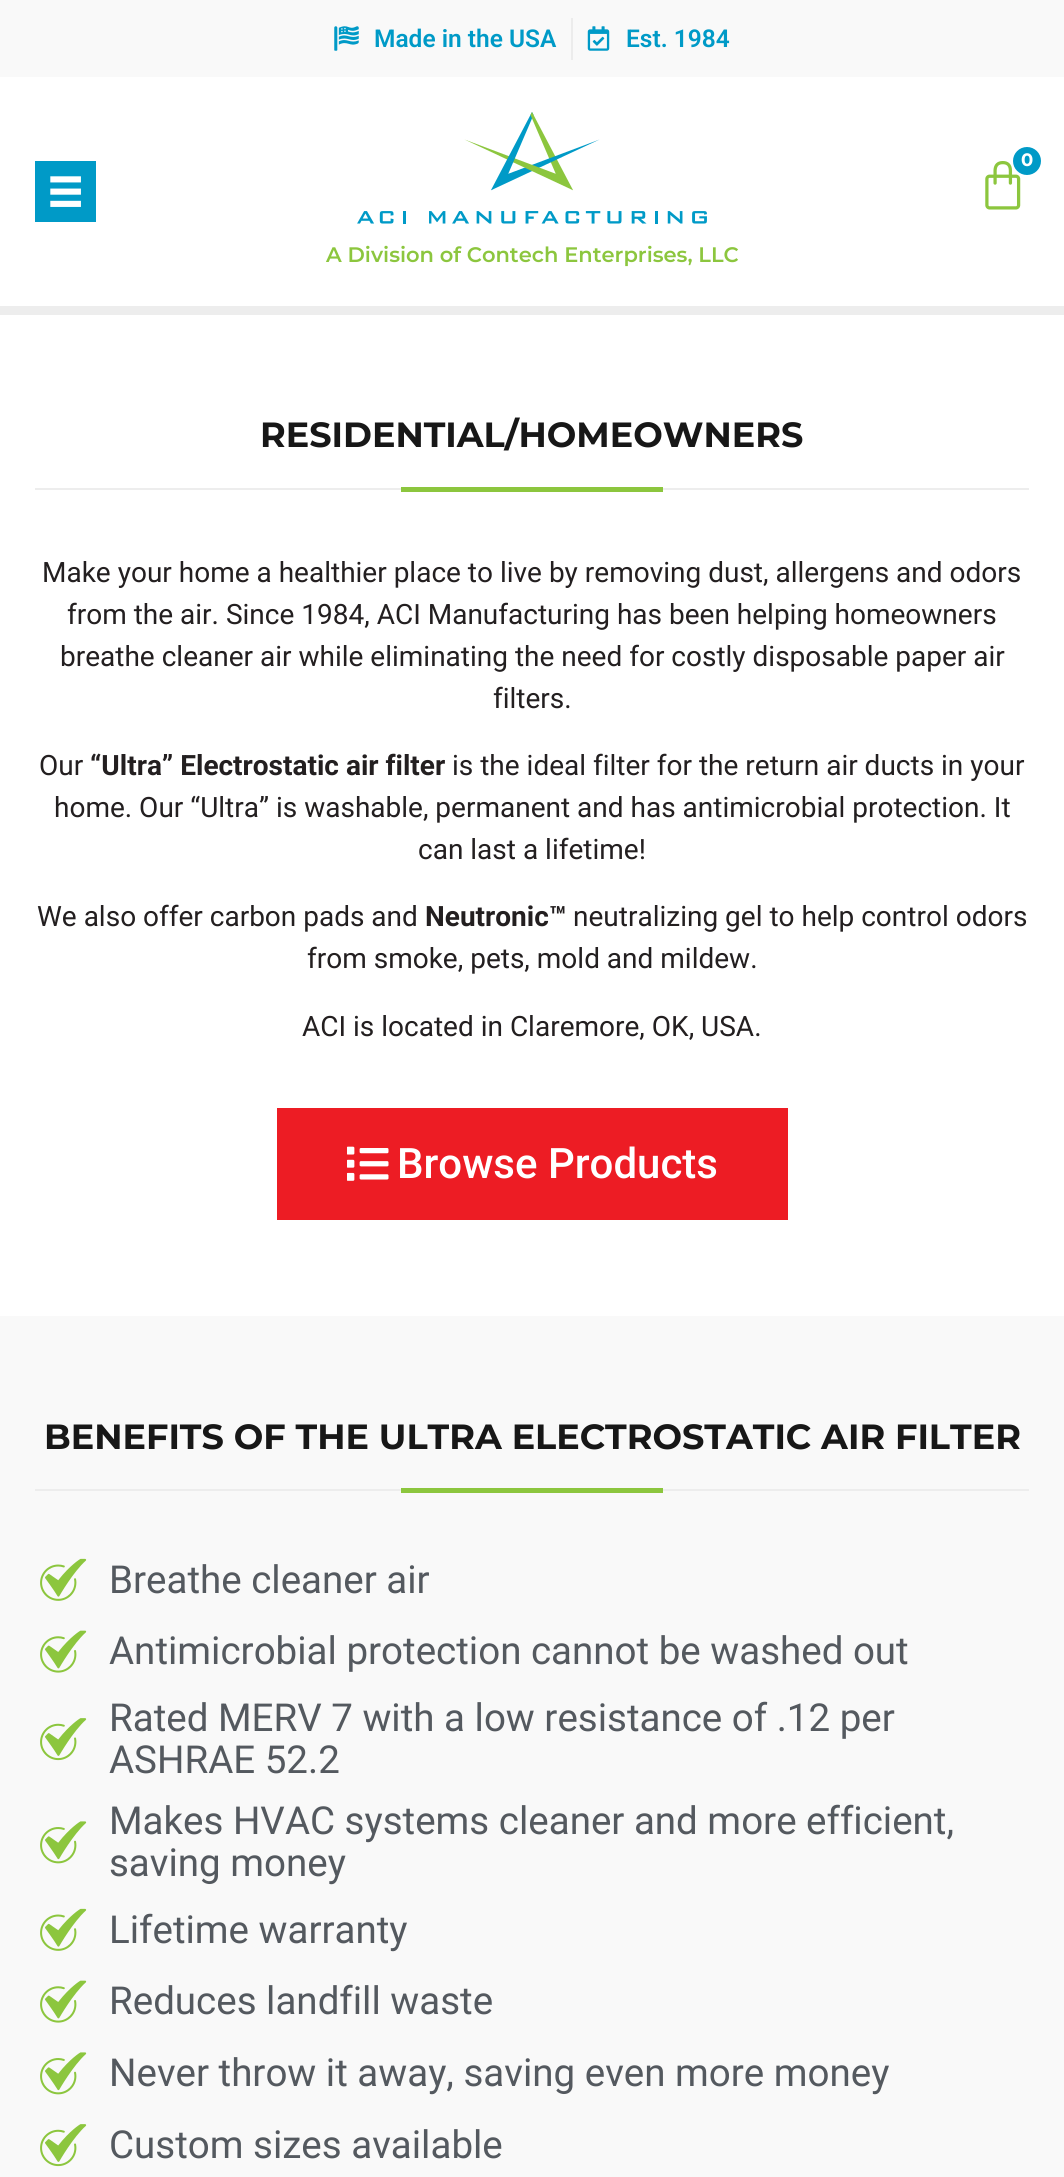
#include <cairo.h>
#include <math.h>
#include <stddef.h>


static void picture(cairo_t *cr, const char *path, double x, double y, double w, double h) {
    cairo_surface_t *image = cairo_image_surface_create_from_png(path);
    cairo_save(cr);
    cairo_set_source_surface(cr, image, x, y);
    cairo_rectangle(cr, x, y, w, h);
    cairo_fill(cr);
    cairo_restore(cr);
    cairo_surface_destroy(image);
}

int main(void) {
    cairo_surface_t *surface = cairo_image_surface_create(CAIRO_FORMAT_RGB24, 1064, 2177);
    cairo_t *cr = cairo_create(surface);
    cairo_font_options_t *options = cairo_font_options_create();
    cairo_font_options_set_hint_metrics(options, CAIRO_HINT_METRICS_OFF);
    cairo_font_options_set_hint_style(options, CAIRO_HINT_STYLE_NONE);
    cairo_set_font_options(cr, options);
    cairo_set_miter_limit(cr, 4);
    cairo_set_source_rgb(cr, 1, 1, 1);
    cairo_paint(cr);
    cairo_set_source_rgb(cr, 0.976, 0.976, 0.976);
    cairo_rectangle(cr, 0, 0, 1064, 77);
    cairo_fill(cr);
    picture(cr, "img1.png", 334, 26, 25, 25);
    cairo_select_font_face(cr, "Roboto SemiBold", CAIRO_FONT_SLANT_NORMAL, CAIRO_FONT_WEIGHT_NORMAL);
    cairo_set_font_size(cr, 24.5);
    cairo_set_source_rgb(cr, 0, 0.604, 0.78);
    cairo_move_to(cr, 374, 47);
    cairo_show_text(cr, "Made in the USA");
    cairo_set_source_rgb(cr, 0.925, 0.925, 0.925);
    cairo_rectangle(cr, 571, 18, 2, 42);
    cairo_fill(cr);
    picture(cr, "img2.png", 587, 26, 23, 25);
    cairo_set_source_rgb(cr, 0, 0.604, 0.78);
    cairo_move_to(cr, 626, 47);
    cairo_show_text(cr, "Est. 1984");
    cairo_set_source_rgb(cr, 0.929, 0.929, 0.929);
    cairo_rectangle(cr, 0, 306, 1064, 9);
    cairo_fill(cr);
    cairo_set_source_rgb(cr, 0, 0.604, 0.78);
    cairo_rectangle(cr, 35, 161, 61, 61);
    cairo_fill(cr);
    picture(cr, "img3.png", 50, 176, 31, 31);
    picture(cr, "img4.png", 985, 161, 36, 49);
    cairo_arc(cr, 1027, 161, 14, 0, 2 * M_PI);
    cairo_fill(cr);
    cairo_select_font_face(cr, "Montserrat", CAIRO_FONT_SLANT_NORMAL, CAIRO_FONT_WEIGHT_BOLD);
    cairo_set_font_size(cr, 18);
    cairo_set_source_rgb(cr, 1, 1, 1);
    cairo_move_to(cr, 1021, 166);
    cairo_show_text(cr, "0");
    picture(cr, "img5.png", 357, 112, 350, 112);
    cairo_select_font_face(cr, "Montserrat SemiBold", CAIRO_FONT_SLANT_NORMAL, CAIRO_FONT_WEIGHT_NORMAL);
    cairo_set_font_size(cr, 21);
    cairo_set_source_rgb(cr, 0.549, 0.776, 0.243);
    cairo_move_to(cr, 326, 262);
    cairo_show_text(cr, "A Division of Contech Enterprises, LLC");
    cairo_select_font_face(cr, "Montserrat", CAIRO_FONT_SLANT_NORMAL, CAIRO_FONT_WEIGHT_BOLD);
    cairo_set_font_size(cr, 35);
    cairo_set_source_rgb(cr, 0.09, 0.09, 0.09);
    cairo_move_to(cr, 260, 447);
    cairo_show_text(cr, "RESIDENTIAL/HOMEOWNERS");
    cairo_set_source_rgb(cr, 0.929, 0.929, 0.929);
    cairo_rectangle(cr, 35, 488, 366, 2);
    cairo_fill(cr);
    cairo_set_source_rgb(cr, 0.549, 0.776, 0.243);
    cairo_rectangle(cr, 401, 487, 262, 5);
    cairo_fill(cr);
    cairo_set_source_rgb(cr, 0.929, 0.929, 0.929);
    cairo_rectangle(cr, 663, 488, 366, 2);
    cairo_fill(cr);
    cairo_select_font_face(cr, "Roboto", CAIRO_FONT_SLANT_NORMAL, CAIRO_FONT_WEIGHT_NORMAL);
    cairo_set_font_size(cr, 28);
    cairo_set_source_rgb(cr, 0.137, 0.122, 0.125);
    cairo_move_to(cr, 42, 582);
    cairo_show_text(cr, "Make your home a healthier place to live by removing dust, allergens and odors");
    cairo_move_to(cr, 67, 624);
    cairo_show_text(cr, "from the air. Since 1984, ACI Manufacturing has been helping homeowners");
    cairo_move_to(cr, 60, 666);
    cairo_show_text(cr, "breathe cleaner air while eliminating the need for costly disposable paper air");
    cairo_move_to(cr, 493, 708);
    cairo_show_text(cr, "filters.");
    cairo_move_to(cr, 39, 775);
    cairo_show_text(cr, "Our");
    cairo_select_font_face(cr, "Roboto", CAIRO_FONT_SLANT_NORMAL, CAIRO_FONT_WEIGHT_BOLD);
    cairo_move_to(cr, 90, 775);
    cairo_show_text(cr, "“Ultra” Electrostatic air filter");
    cairo_select_font_face(cr, "Roboto", CAIRO_FONT_SLANT_NORMAL, CAIRO_FONT_WEIGHT_NORMAL);
    cairo_move_to(cr, 452, 775);
    cairo_show_text(cr, "is the ideal filter for the return air ducts in your");
    cairo_move_to(cr, 54, 817);
    cairo_show_text(cr, "home. Our “Ultra” is washable, permanent and has antimicrobial protection. It");
    cairo_move_to(cr, 418, 859);
    cairo_show_text(cr, "can last a lifetime!");
    cairo_move_to(cr, 37, 926);
    cairo_show_text(cr, "We also offer carbon pads and");
    cairo_select_font_face(cr, "Roboto", CAIRO_FONT_SLANT_NORMAL, CAIRO_FONT_WEIGHT_BOLD);
    cairo_move_to(cr, 425, 926);
    cairo_show_text(cr, "Neutronic™");
    cairo_select_font_face(cr, "Roboto", CAIRO_FONT_SLANT_NORMAL, CAIRO_FONT_WEIGHT_NORMAL);
    cairo_move_to(cr, 573, 926);
    cairo_show_text(cr, "neutralizing gel to help control odors");
    cairo_move_to(cr, 307, 968);
    cairo_show_text(cr, "from smoke, pets, mold and mildew.");
    cairo_move_to(cr, 302, 1036);
    cairo_show_text(cr, "ACI is located in Claremore, OK, USA.");
    cairo_set_source_rgb(cr, 0.929, 0.11, 0.141);
    cairo_rectangle(cr, 277, 1108, 511, 112);
    cairo_fill(cr);
    picture(cr, "img6.png", 347, 1146, 42, 35);
    cairo_select_font_face(cr, "Roboto Medium", CAIRO_FONT_SLANT_NORMAL, CAIRO_FONT_WEIGHT_NORMAL);
    cairo_set_font_size(cr, 42);
    cairo_set_source_rgb(cr, 1, 1, 1);
    cairo_move_to(cr, 397, 1178);
    cairo_show_text(cr, "Browse Products");
    cairo_set_source_rgb(cr, 0.976, 0.976, 0.976);
    cairo_rectangle(cr, 0, 1316, 1064, 861);
    cairo_fill(cr);
    cairo_select_font_face(cr, "Montserrat", CAIRO_FONT_SLANT_NORMAL, CAIRO_FONT_WEIGHT_BOLD);
    cairo_set_font_size(cr, 35);
    cairo_set_source_rgb(cr, 0.09, 0.09, 0.09);
    cairo_move_to(cr, 44, 1449);
    cairo_show_text(cr, "BENEFITS OF THE ULTRA ELECTROSTATIC AIR FILTER");
    cairo_set_source_rgb(cr, 0.929, 0.929, 0.929);
    cairo_rectangle(cr, 35, 1489, 366, 2);
    cairo_fill(cr);
    cairo_set_source_rgb(cr, 0.549, 0.776, 0.243);
    cairo_rectangle(cr, 401, 1488, 262, 5);
    cairo_fill(cr);
    cairo_set_source_rgb(cr, 0.929, 0.929, 0.929);
    cairo_rectangle(cr, 663, 1489, 366, 2);
    cairo_fill(cr);
    picture(cr, "img7.png", 40, 1558, 47, 43);
    cairo_select_font_face(cr, "Roboto", CAIRO_FONT_SLANT_NORMAL, CAIRO_FONT_WEIGHT_NORMAL);
    cairo_set_font_size(cr, 38.5);
    cairo_set_source_rgb(cr, 0.329, 0.349, 0.373);
    cairo_move_to(cr, 109, 1593);
    cairo_show_text(cr, "Breathe cleaner air");
    picture(cr, "img8.png", 40, 1630, 47, 43);
    cairo_move_to(cr, 109, 1664);
    cairo_show_text(cr, "Antimicrobial protection cannot be washed out");
    picture(cr, "img9.png", 40, 1718, 47, 43);
    cairo_move_to(cr, 109, 1731);
    cairo_show_text(cr, "Rated MERV 7 with a low resistance of .12 per");
    cairo_move_to(cr, 109, 1773);
    cairo_show_text(cr, "ASHRAE 52.2");
    picture(cr, "img10.png", 40, 1821, 47, 43);
    cairo_move_to(cr, 109, 1834);
    cairo_show_text(cr, "Makes HVAC systems cleaner and more efficient,");
    cairo_move_to(cr, 109, 1876);
    cairo_show_text(cr, "saving money");
    picture(cr, "img7.png", 40, 1908, 47, 43);
    cairo_move_to(cr, 109, 1943);
    cairo_show_text(cr, "Lifetime warranty");
    picture(cr, "img8.png", 40, 1980, 47, 43);
    cairo_move_to(cr, 109, 2014);
    cairo_show_text(cr, "Reduces landfill waste");
    picture(cr, "img10.png", 40, 2052, 47, 43);
    cairo_move_to(cr, 109, 2086);
    cairo_show_text(cr, "Never throw it away, saving even more money");
    picture(cr, "img9.png", 40, 2124, 47, 43);
    cairo_move_to(cr, 109, 2158);
    cairo_show_text(cr, "Custom sizes available");
    cairo_surface_write_to_png(surface, "page.png");
    cairo_font_options_destroy(options);
    cairo_destroy(cr);
    cairo_surface_destroy(surface);
    return 0;
}
